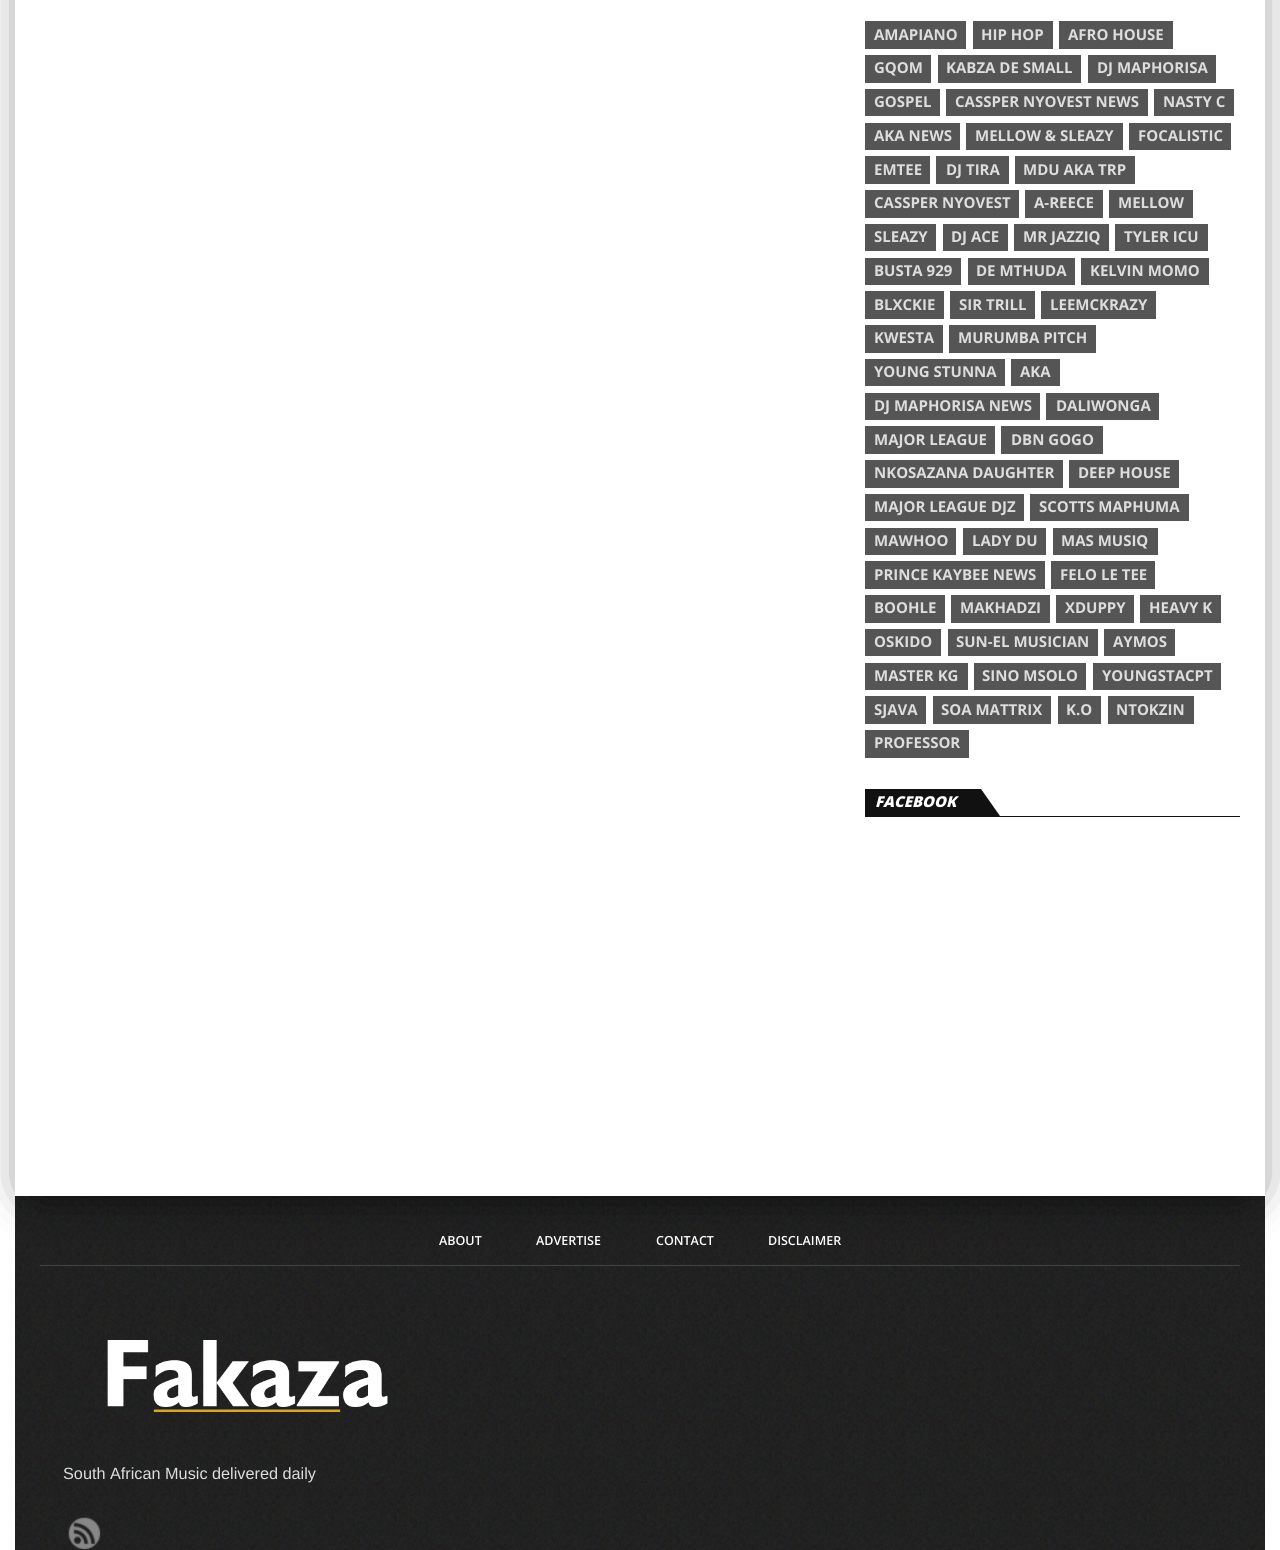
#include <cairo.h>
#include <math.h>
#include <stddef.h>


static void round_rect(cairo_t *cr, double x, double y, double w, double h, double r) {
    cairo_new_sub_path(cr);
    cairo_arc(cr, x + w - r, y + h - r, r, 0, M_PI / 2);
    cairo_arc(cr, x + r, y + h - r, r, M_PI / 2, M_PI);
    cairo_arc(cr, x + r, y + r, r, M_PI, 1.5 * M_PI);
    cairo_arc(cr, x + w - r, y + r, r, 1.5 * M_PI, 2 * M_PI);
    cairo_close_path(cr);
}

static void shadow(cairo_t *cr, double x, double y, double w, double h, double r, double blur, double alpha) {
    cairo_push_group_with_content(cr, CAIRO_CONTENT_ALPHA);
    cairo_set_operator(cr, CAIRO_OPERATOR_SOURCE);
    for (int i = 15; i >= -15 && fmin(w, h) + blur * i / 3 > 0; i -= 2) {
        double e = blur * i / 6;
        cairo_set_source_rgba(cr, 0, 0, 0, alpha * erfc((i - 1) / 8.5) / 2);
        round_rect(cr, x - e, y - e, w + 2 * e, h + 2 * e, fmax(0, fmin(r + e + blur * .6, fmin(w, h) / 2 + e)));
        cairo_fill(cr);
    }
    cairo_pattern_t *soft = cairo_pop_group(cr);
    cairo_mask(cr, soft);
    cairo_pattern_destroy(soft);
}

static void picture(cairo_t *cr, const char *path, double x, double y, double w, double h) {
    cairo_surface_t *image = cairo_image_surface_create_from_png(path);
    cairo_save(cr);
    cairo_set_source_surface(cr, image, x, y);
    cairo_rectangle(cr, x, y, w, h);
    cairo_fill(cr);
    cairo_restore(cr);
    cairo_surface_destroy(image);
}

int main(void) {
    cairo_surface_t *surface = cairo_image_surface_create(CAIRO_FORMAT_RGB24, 1280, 1550);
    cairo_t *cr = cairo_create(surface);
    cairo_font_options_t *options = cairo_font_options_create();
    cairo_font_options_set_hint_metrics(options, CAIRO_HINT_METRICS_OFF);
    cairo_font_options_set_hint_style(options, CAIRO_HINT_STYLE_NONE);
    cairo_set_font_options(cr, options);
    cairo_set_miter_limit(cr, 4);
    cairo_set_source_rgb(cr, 1, 1, 1);
    cairo_paint(cr);
    cairo_set_source_rgb(cr, 0.133, 0.133, 0.133);
    cairo_rectangle(cr, 15, 1196, 1250, 2);
    cairo_fill(cr);
    picture(cr, "img1.png", 15, 1197, 1250, 353);
    cairo_save(cr);
    cairo_set_fill_rule(cr, CAIRO_FILL_RULE_EVEN_ODD);
    cairo_new_path(cr);
    cairo_move_to(cr, 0, 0);
    cairo_line_to(cr, 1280, 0);
    cairo_line_to(cr, 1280, 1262);
    cairo_line_to(cr, 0, 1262);
    cairo_close_path(cr);
    cairo_move_to(cr, 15, -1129);
    cairo_line_to(cr, 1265, -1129);
    cairo_line_to(cr, 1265, 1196);
    cairo_line_to(cr, 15, 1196);
    cairo_close_path(cr);
    cairo_clip(cr);
    cairo_set_source_rgb(cr, 0, 0, 0);
    shadow(cr, 38, -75, 1205, 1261, 0, 25, 1);
    cairo_restore(cr);
    cairo_set_source_rgb(cr, 0.333, 0.333, 0.333);
    cairo_rectangle(cr, 865, 21, 101, 28);
    cairo_fill(cr);
    cairo_select_font_face(cr, "Open Sans", CAIRO_FONT_SLANT_NORMAL, CAIRO_FONT_WEIGHT_BOLD);
    cairo_set_font_size(cr, 15);
    cairo_set_source_rgb(cr, 0.867, 0.867, 0.867);
    cairo_move_to(cr, 874, 40);
    cairo_show_text(cr, "AMAPIANO");
    cairo_set_source_rgb(cr, 0.333, 0.333, 0.333);
    cairo_rectangle(cr, 973, 21, 80, 28);
    cairo_fill(cr);
    cairo_set_source_rgb(cr, 0.867, 0.867, 0.867);
    cairo_move_to(cr, 981, 40);
    cairo_show_text(cr, "HIP HOP");
    cairo_set_source_rgb(cr, 0.333, 0.333, 0.333);
    cairo_rectangle(cr, 1059, 21, 114, 28);
    cairo_fill(cr);
    cairo_set_source_rgb(cr, 0.867, 0.867, 0.867);
    cairo_move_to(cr, 1068, 40);
    cairo_show_text(cr, "AFRO HOUSE");
    cairo_set_source_rgb(cr, 0.333, 0.333, 0.333);
    cairo_rectangle(cr, 865, 55, 66, 28);
    cairo_fill(cr);
    cairo_set_source_rgb(cr, 0.867, 0.867, 0.867);
    cairo_move_to(cr, 874, 73);
    cairo_show_text(cr, "GQOM");
    cairo_set_source_rgb(cr, 0.333, 0.333, 0.333);
    cairo_rectangle(cr, 938, 55, 143, 28);
    cairo_fill(cr);
    cairo_set_source_rgb(cr, 0.867, 0.867, 0.867);
    cairo_move_to(cr, 946, 73);
    cairo_show_text(cr, "KABZA DE SMALL");
    cairo_set_source_rgb(cr, 0.333, 0.333, 0.333);
    cairo_rectangle(cr, 1088, 55, 128, 28);
    cairo_fill(cr);
    cairo_set_source_rgb(cr, 0.867, 0.867, 0.867);
    cairo_move_to(cr, 1097, 73);
    cairo_show_text(cr, "DJ MAPHORISA");
    cairo_set_source_rgb(cr, 0.333, 0.333, 0.333);
    cairo_rectangle(cr, 865, 89, 75, 27);
    cairo_fill(cr);
    cairo_set_source_rgb(cr, 0.867, 0.867, 0.867);
    cairo_move_to(cr, 874, 107);
    cairo_show_text(cr, "GOSPEL");
    cairo_set_source_rgb(cr, 0.333, 0.333, 0.333);
    cairo_rectangle(cr, 946, 89, 202, 27);
    cairo_fill(cr);
    cairo_set_source_rgb(cr, 0.867, 0.867, 0.867);
    cairo_move_to(cr, 955, 107);
    cairo_show_text(cr, "CASSPER NYOVEST NEWS");
    cairo_set_source_rgb(cr, 0.333, 0.333, 0.333);
    cairo_rectangle(cr, 1154, 89, 80, 27);
    cairo_fill(cr);
    cairo_set_source_rgb(cr, 0.867, 0.867, 0.867);
    cairo_move_to(cr, 1163, 107);
    cairo_show_text(cr, "NASTY C");
    cairo_set_source_rgb(cr, 0.333, 0.333, 0.333);
    cairo_rectangle(cr, 865, 123, 95, 27);
    cairo_fill(cr);
    cairo_set_source_rgb(cr, 0.867, 0.867, 0.867);
    cairo_move_to(cr, 874, 141);
    cairo_show_text(cr, "AKA NEWS");
    cairo_set_source_rgb(cr, 0.333, 0.333, 0.333);
    cairo_rectangle(cr, 966, 123, 157, 27);
    cairo_fill(cr);
    cairo_set_source_rgb(cr, 0.867, 0.867, 0.867);
    cairo_move_to(cr, 975, 141);
    cairo_show_text(cr, "MELLOW & SLEAZY");
    cairo_set_source_rgb(cr, 0.333, 0.333, 0.333);
    cairo_rectangle(cr, 1129, 123, 102, 27);
    cairo_fill(cr);
    cairo_set_source_rgb(cr, 0.867, 0.867, 0.867);
    cairo_move_to(cr, 1138, 141);
    cairo_show_text(cr, "FOCALISTIC");
    cairo_set_source_rgb(cr, 0.333, 0.333, 0.333);
    cairo_rectangle(cr, 865, 156, 65, 28);
    cairo_fill(cr);
    cairo_set_source_rgb(cr, 0.867, 0.867, 0.867);
    cairo_move_to(cr, 874, 175);
    cairo_show_text(cr, "EMTEE");
    cairo_set_source_rgb(cr, 0.333, 0.333, 0.333);
    cairo_rectangle(cr, 936, 156, 73, 28);
    cairo_fill(cr);
    cairo_set_source_rgb(cr, 0.867, 0.867, 0.867);
    cairo_move_to(cr, 946, 175);
    cairo_show_text(cr, "DJ TIRA");
    cairo_set_source_rgb(cr, 0.333, 0.333, 0.333);
    cairo_rectangle(cr, 1015, 156, 120, 28);
    cairo_fill(cr);
    cairo_set_source_rgb(cr, 0.867, 0.867, 0.867);
    cairo_move_to(cr, 1023, 175);
    cairo_show_text(cr, "MDU AKA TRP");
    cairo_set_source_rgb(cr, 0.333, 0.333, 0.333);
    cairo_rectangle(cr, 865, 190, 154, 28);
    cairo_fill(cr);
    cairo_set_source_rgb(cr, 0.867, 0.867, 0.867);
    cairo_move_to(cr, 874, 208);
    cairo_show_text(cr, "CASSPER NYOVEST");
    cairo_set_source_rgb(cr, 0.333, 0.333, 0.333);
    cairo_rectangle(cr, 1025, 190, 78, 28);
    cairo_fill(cr);
    cairo_set_source_rgb(cr, 0.867, 0.867, 0.867);
    cairo_move_to(cr, 1034, 208);
    cairo_show_text(cr, "A-REECE");
    cairo_set_source_rgb(cr, 0.333, 0.333, 0.333);
    cairo_rectangle(cr, 1109, 190, 84, 28);
    cairo_fill(cr);
    cairo_set_source_rgb(cr, 0.867, 0.867, 0.867);
    cairo_move_to(cr, 1118, 208);
    cairo_show_text(cr, "MELLOW");
    cairo_set_source_rgb(cr, 0.333, 0.333, 0.333);
    cairo_rectangle(cr, 865, 224, 71, 27);
    cairo_fill(cr);
    cairo_set_source_rgb(cr, 0.867, 0.867, 0.867);
    cairo_move_to(cr, 874, 242);
    cairo_show_text(cr, "SLEAZY");
    cairo_set_source_rgb(cr, 0.333, 0.333, 0.333);
    cairo_rectangle(cr, 943, 224, 65, 27);
    cairo_fill(cr);
    cairo_set_source_rgb(cr, 0.867, 0.867, 0.867);
    cairo_move_to(cr, 951, 242);
    cairo_show_text(cr, "DJ ACE");
    cairo_set_source_rgb(cr, 0.333, 0.333, 0.333);
    cairo_rectangle(cr, 1014, 224, 95, 27);
    cairo_fill(cr);
    cairo_set_source_rgb(cr, 0.867, 0.867, 0.867);
    cairo_move_to(cr, 1023, 242);
    cairo_show_text(cr, "MR JAZZIQ");
    cairo_set_source_rgb(cr, 0.333, 0.333, 0.333);
    cairo_rectangle(cr, 1115, 224, 93, 27);
    cairo_fill(cr);
    cairo_set_source_rgb(cr, 0.867, 0.867, 0.867);
    cairo_move_to(cr, 1124, 242);
    cairo_show_text(cr, "TYLER ICU");
    cairo_set_source_rgb(cr, 0.333, 0.333, 0.333);
    cairo_rectangle(cr, 865, 258, 96, 27);
    cairo_fill(cr);
    cairo_set_source_rgb(cr, 0.867, 0.867, 0.867);
    cairo_move_to(cr, 874, 276);
    cairo_show_text(cr, "BUSTA 929");
    cairo_set_source_rgb(cr, 0.333, 0.333, 0.333);
    cairo_rectangle(cr, 968, 258, 107, 27);
    cairo_fill(cr);
    cairo_set_source_rgb(cr, 0.867, 0.867, 0.867);
    cairo_move_to(cr, 976, 276);
    cairo_show_text(cr, "DE MTHUDA");
    cairo_set_source_rgb(cr, 0.333, 0.333, 0.333);
    cairo_rectangle(cr, 1081, 258, 128, 27);
    cairo_fill(cr);
    cairo_set_source_rgb(cr, 0.867, 0.867, 0.867);
    cairo_move_to(cr, 1090, 276);
    cairo_show_text(cr, "KELVIN MOMO");
    cairo_set_source_rgb(cr, 0.333, 0.333, 0.333);
    cairo_rectangle(cr, 865, 291, 79, 28);
    cairo_fill(cr);
    cairo_set_source_rgb(cr, 0.867, 0.867, 0.867);
    cairo_move_to(cr, 874, 310);
    cairo_show_text(cr, "BLXCKIE");
    cairo_set_source_rgb(cr, 0.333, 0.333, 0.333);
    cairo_rectangle(cr, 950, 291, 85, 28);
    cairo_fill(cr);
    cairo_set_source_rgb(cr, 0.867, 0.867, 0.867);
    cairo_move_to(cr, 959, 310);
    cairo_show_text(cr, "SIR TRILL");
    cairo_set_source_rgb(cr, 0.333, 0.333, 0.333);
    cairo_rectangle(cr, 1041, 291, 115, 28);
    cairo_fill(cr);
    cairo_set_source_rgb(cr, 0.867, 0.867, 0.867);
    cairo_move_to(cr, 1050, 310);
    cairo_show_text(cr, "LEEMCKRAZY");
    cairo_set_source_rgb(cr, 0.333, 0.333, 0.333);
    cairo_rectangle(cr, 865, 325, 78, 28);
    cairo_fill(cr);
    cairo_set_source_rgb(cr, 0.867, 0.867, 0.867);
    cairo_move_to(cr, 874, 343);
    cairo_show_text(cr, "KWESTA");
    cairo_set_source_rgb(cr, 0.333, 0.333, 0.333);
    cairo_rectangle(cr, 949, 325, 147, 28);
    cairo_fill(cr);
    cairo_set_source_rgb(cr, 0.867, 0.867, 0.867);
    cairo_move_to(cr, 958, 343);
    cairo_show_text(cr, "MURUMBA PITCH");
    cairo_set_source_rgb(cr, 0.333, 0.333, 0.333);
    cairo_rectangle(cr, 865, 359, 140, 27);
    cairo_fill(cr);
    cairo_set_source_rgb(cr, 0.867, 0.867, 0.867);
    cairo_move_to(cr, 874, 377);
    cairo_show_text(cr, "YOUNG STUNNA");
    cairo_set_source_rgb(cr, 0.333, 0.333, 0.333);
    cairo_rectangle(cr, 1011, 359, 49, 27);
    cairo_fill(cr);
    cairo_set_source_rgb(cr, 0.867, 0.867, 0.867);
    cairo_move_to(cr, 1020, 377);
    cairo_show_text(cr, "AKA");
    cairo_set_source_rgb(cr, 0.333, 0.333, 0.333);
    cairo_rectangle(cr, 865, 393, 175, 27);
    cairo_fill(cr);
    cairo_set_source_rgb(cr, 0.867, 0.867, 0.867);
    cairo_move_to(cr, 874, 411);
    cairo_show_text(cr, "DJ MAPHORISA NEWS");
    cairo_set_source_rgb(cr, 0.333, 0.333, 0.333);
    cairo_rectangle(cr, 1046, 393, 113, 27);
    cairo_fill(cr);
    cairo_set_source_rgb(cr, 0.867, 0.867, 0.867);
    cairo_move_to(cr, 1056, 411);
    cairo_show_text(cr, "DALIWONGA");
    cairo_set_source_rgb(cr, 0.333, 0.333, 0.333);
    cairo_rectangle(cr, 865, 426, 130, 28);
    cairo_fill(cr);
    cairo_set_source_rgb(cr, 0.867, 0.867, 0.867);
    cairo_move_to(cr, 874, 445);
    cairo_show_text(cr, "MAJOR LEAGUE");
    cairo_set_source_rgb(cr, 0.333, 0.333, 0.333);
    cairo_rectangle(cr, 1001, 426, 102, 28);
    cairo_fill(cr);
    cairo_set_source_rgb(cr, 0.867, 0.867, 0.867);
    cairo_move_to(cr, 1011, 445);
    cairo_show_text(cr, "DBN GOGO");
    cairo_set_source_rgb(cr, 0.333, 0.333, 0.333);
    cairo_rectangle(cr, 865, 460, 198, 28);
    cairo_fill(cr);
    cairo_set_source_rgb(cr, 0.867, 0.867, 0.867);
    cairo_move_to(cr, 874, 478);
    cairo_show_text(cr, "NKOSAZANA DAUGHTER");
    cairo_set_source_rgb(cr, 0.333, 0.333, 0.333);
    cairo_rectangle(cr, 1069, 460, 110, 28);
    cairo_fill(cr);
    cairo_set_source_rgb(cr, 0.867, 0.867, 0.867);
    cairo_move_to(cr, 1078, 478);
    cairo_show_text(cr, "DEEP HOUSE");
    cairo_set_source_rgb(cr, 0.333, 0.333, 0.333);
    cairo_rectangle(cr, 865, 494, 159, 27);
    cairo_fill(cr);
    cairo_set_source_rgb(cr, 0.867, 0.867, 0.867);
    cairo_move_to(cr, 874, 512);
    cairo_show_text(cr, "MAJOR LEAGUE DJZ");
    cairo_set_source_rgb(cr, 0.333, 0.333, 0.333);
    cairo_rectangle(cr, 1030, 494, 159, 27);
    cairo_fill(cr);
    cairo_set_source_rgb(cr, 0.867, 0.867, 0.867);
    cairo_move_to(cr, 1039, 512);
    cairo_show_text(cr, "SCOTTS MAPHUMA");
    cairo_set_source_rgb(cr, 0.333, 0.333, 0.333);
    cairo_rectangle(cr, 865, 528, 91, 27);
    cairo_fill(cr);
    cairo_set_source_rgb(cr, 0.867, 0.867, 0.867);
    cairo_move_to(cr, 874, 546);
    cairo_show_text(cr, "MAWHOO");
    cairo_set_source_rgb(cr, 0.333, 0.333, 0.333);
    cairo_rectangle(cr, 963, 528, 83, 27);
    cairo_fill(cr);
    cairo_set_source_rgb(cr, 0.867, 0.867, 0.867);
    cairo_move_to(cr, 972, 546);
    cairo_show_text(cr, "LADY DU");
    cairo_set_source_rgb(cr, 0.333, 0.333, 0.333);
    cairo_rectangle(cr, 1053, 528, 105, 27);
    cairo_fill(cr);
    cairo_set_source_rgb(cr, 0.867, 0.867, 0.867);
    cairo_move_to(cr, 1061, 546);
    cairo_show_text(cr, "MAS MUSIQ");
    cairo_set_source_rgb(cr, 0.333, 0.333, 0.333);
    cairo_rectangle(cr, 865, 561, 180, 28);
    cairo_fill(cr);
    cairo_set_source_rgb(cr, 0.867, 0.867, 0.867);
    cairo_move_to(cr, 874, 580);
    cairo_show_text(cr, "PRINCE KAYBEE NEWS");
    cairo_set_source_rgb(cr, 0.333, 0.333, 0.333);
    cairo_rectangle(cr, 1051, 561, 104, 28);
    cairo_fill(cr);
    cairo_set_source_rgb(cr, 0.867, 0.867, 0.867);
    cairo_move_to(cr, 1060, 580);
    cairo_show_text(cr, "FELO LE TEE");
    cairo_set_source_rgb(cr, 0.333, 0.333, 0.333);
    cairo_rectangle(cr, 865, 595, 80, 28);
    cairo_fill(cr);
    cairo_set_source_rgb(cr, 0.867, 0.867, 0.867);
    cairo_move_to(cr, 874, 613);
    cairo_show_text(cr, "BOOHLE");
    cairo_set_source_rgb(cr, 0.333, 0.333, 0.333);
    cairo_rectangle(cr, 951, 595, 99, 28);
    cairo_fill(cr);
    cairo_set_source_rgb(cr, 0.867, 0.867, 0.867);
    cairo_move_to(cr, 960, 613);
    cairo_show_text(cr, "MAKHADZI");
    cairo_set_source_rgb(cr, 0.333, 0.333, 0.333);
    cairo_rectangle(cr, 1056, 595, 78, 28);
    cairo_fill(cr);
    cairo_set_source_rgb(cr, 0.867, 0.867, 0.867);
    cairo_move_to(cr, 1065, 613);
    cairo_show_text(cr, "XDUPPY");
    cairo_set_source_rgb(cr, 0.333, 0.333, 0.333);
    cairo_rectangle(cr, 1140, 595, 81, 28);
    cairo_fill(cr);
    cairo_set_source_rgb(cr, 0.867, 0.867, 0.867);
    cairo_move_to(cr, 1149, 613);
    cairo_show_text(cr, "HEAVY K");
    cairo_set_source_rgb(cr, 0.333, 0.333, 0.333);
    cairo_rectangle(cr, 865, 629, 76, 27);
    cairo_fill(cr);
    cairo_set_source_rgb(cr, 0.867, 0.867, 0.867);
    cairo_move_to(cr, 874, 647);
    cairo_show_text(cr, "OSKIDO");
    cairo_set_source_rgb(cr, 0.333, 0.333, 0.333);
    cairo_rectangle(cr, 948, 629, 150, 27);
    cairo_fill(cr);
    cairo_set_source_rgb(cr, 0.867, 0.867, 0.867);
    cairo_move_to(cr, 956, 647);
    cairo_show_text(cr, "SUN-EL MUSICIAN");
    cairo_set_source_rgb(cr, 0.333, 0.333, 0.333);
    cairo_rectangle(cr, 1104, 629, 71, 27);
    cairo_fill(cr);
    cairo_set_source_rgb(cr, 0.867, 0.867, 0.867);
    cairo_move_to(cr, 1113, 647);
    cairo_show_text(cr, "AYMOS");
    cairo_set_source_rgb(cr, 0.333, 0.333, 0.333);
    cairo_rectangle(cr, 865, 663, 103, 27);
    cairo_fill(cr);
    cairo_set_source_rgb(cr, 0.867, 0.867, 0.867);
    cairo_move_to(cr, 874, 681);
    cairo_show_text(cr, "MASTER KG");
    cairo_set_source_rgb(cr, 0.333, 0.333, 0.333);
    cairo_rectangle(cr, 974, 663, 112, 27);
    cairo_fill(cr);
    cairo_set_source_rgb(cr, 0.867, 0.867, 0.867);
    cairo_move_to(cr, 982, 681);
    cairo_show_text(cr, "SINO MSOLO");
    cairo_set_source_rgb(cr, 0.333, 0.333, 0.333);
    cairo_rectangle(cr, 1093, 663, 128, 27);
    cairo_fill(cr);
    cairo_set_source_rgb(cr, 0.867, 0.867, 0.867);
    cairo_move_to(cr, 1102, 681);
    cairo_show_text(cr, "YOUNGSTACPT");
    cairo_set_source_rgb(cr, 0.333, 0.333, 0.333);
    cairo_rectangle(cr, 865, 696, 61, 28);
    cairo_fill(cr);
    cairo_set_source_rgb(cr, 0.867, 0.867, 0.867);
    cairo_move_to(cr, 874, 715);
    cairo_show_text(cr, "SJAVA");
    cairo_set_source_rgb(cr, 0.333, 0.333, 0.333);
    cairo_rectangle(cr, 933, 696, 118, 28);
    cairo_fill(cr);
    cairo_set_source_rgb(cr, 0.867, 0.867, 0.867);
    cairo_move_to(cr, 941, 715);
    cairo_show_text(cr, "SOA MATTRIX");
    cairo_set_source_rgb(cr, 0.333, 0.333, 0.333);
    cairo_rectangle(cr, 1058, 696, 43, 28);
    cairo_fill(cr);
    cairo_set_source_rgb(cr, 0.867, 0.867, 0.867);
    cairo_move_to(cr, 1066, 715);
    cairo_show_text(cr, "K.O");
    cairo_set_source_rgb(cr, 0.333, 0.333, 0.333);
    cairo_rectangle(cr, 1108, 696, 86, 28);
    cairo_fill(cr);
    cairo_set_source_rgb(cr, 0.867, 0.867, 0.867);
    cairo_move_to(cr, 1116, 715);
    cairo_show_text(cr, "NTOKZIN");
    cairo_set_source_rgb(cr, 0.333, 0.333, 0.333);
    cairo_rectangle(cr, 865, 730, 104, 28);
    cairo_fill(cr);
    cairo_set_source_rgb(cr, 0.867, 0.867, 0.867);
    cairo_move_to(cr, 874, 748);
    cairo_show_text(cr, "PROFESSOR");
    cairo_set_source_rgb(cr, 0.067, 0.067, 0.067);
    cairo_rectangle(cr, 865, 816, 375, 1);
    cairo_fill(cr);
    cairo_rectangle(cr, 865, 789, 116, 27);
    cairo_fill(cr);
    cairo_select_font_face(cr, "Open Sans ExtraBold", CAIRO_FONT_SLANT_ITALIC, CAIRO_FONT_WEIGHT_NORMAL);
    cairo_set_source_rgb(cr, 1, 1, 1);
    cairo_move_to(cr, 875, 807);
    cairo_show_text(cr, "FACEBOOK");
    cairo_set_source_rgb(cr, 0.067, 0.067, 0.067);
    cairo_new_path(cr);
    cairo_move_to(cr, 981, 816);
    cairo_line_to(cr, 981, 789);
    cairo_line_to(cr, 1000, 816);
    cairo_close_path(cr);
    cairo_fill(cr);
    cairo_set_source_rgb(cr, 0.267, 0.267, 0.267);
    cairo_rectangle(cr, 40, 1265, 1200, 1);
    cairo_fill(cr);
    cairo_select_font_face(cr, "Open Sans SemiBold", CAIRO_FONT_SLANT_NORMAL, CAIRO_FONT_WEIGHT_NORMAL);
    cairo_set_font_size(cr, 12.5);
    cairo_set_source_rgb(cr, 1, 1, 1);
    cairo_move_to(cr, 439, 1245);
    cairo_show_text(cr, "ABOUT");
    cairo_move_to(cr, 536, 1245);
    cairo_show_text(cr, "ADVERTISE");
    cairo_move_to(cr, 656, 1245);
    cairo_show_text(cr, "CONTACT");
    cairo_move_to(cr, 768, 1245);
    cairo_show_text(cr, "DISCLAIMER");
    picture(cr, "img2.png", 107, 1340, 281, 72);
    cairo_select_font_face(cr, "Liberation Sans", CAIRO_FONT_SLANT_NORMAL, CAIRO_FONT_WEIGHT_NORMAL);
    cairo_set_font_size(cr, 16.25);
    cairo_set_source_rgb(cr, 0.867, 0.867, 0.867);
    cairo_move_to(cr, 63, 1479);
    cairo_show_text(cr, "South African Music delivered daily");
    picture(cr, "img3.png", 68, 1517, 33, 32);
    cairo_surface_write_to_png(surface, "page.png");
    cairo_font_options_destroy(options);
    cairo_destroy(cr);
    cairo_surface_destroy(surface);
    return 0;
}
